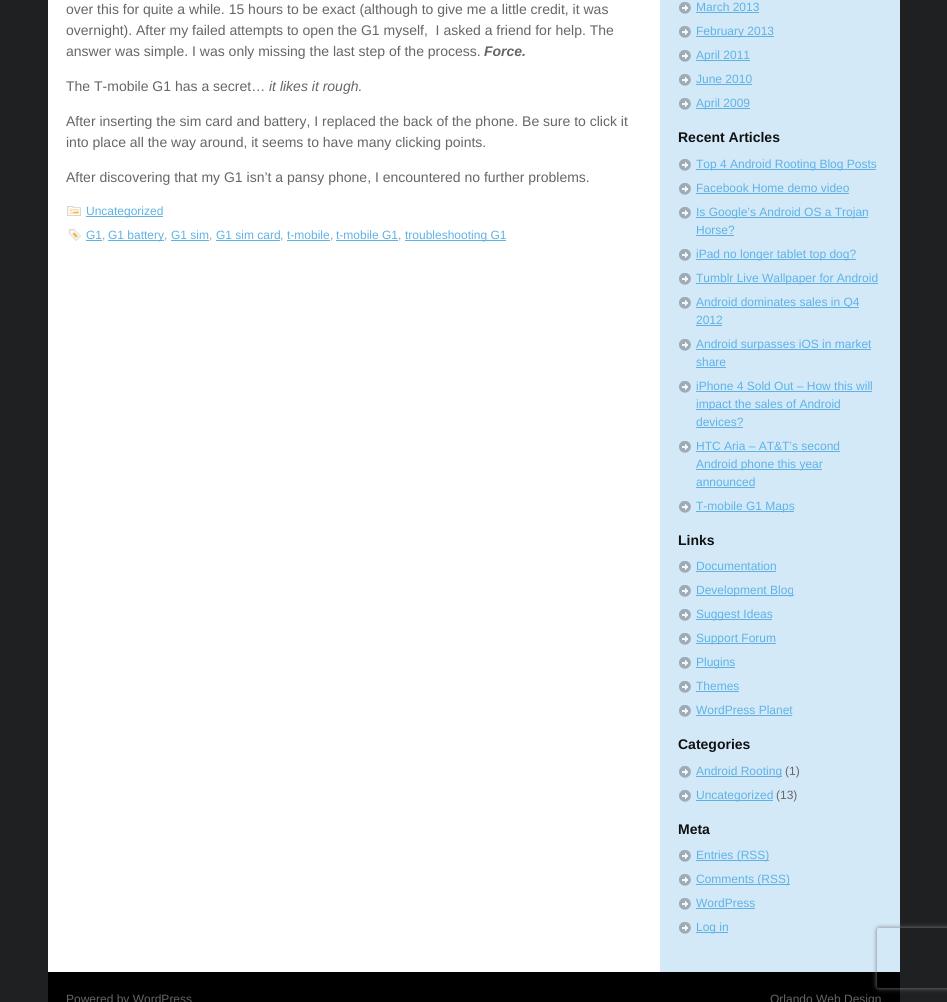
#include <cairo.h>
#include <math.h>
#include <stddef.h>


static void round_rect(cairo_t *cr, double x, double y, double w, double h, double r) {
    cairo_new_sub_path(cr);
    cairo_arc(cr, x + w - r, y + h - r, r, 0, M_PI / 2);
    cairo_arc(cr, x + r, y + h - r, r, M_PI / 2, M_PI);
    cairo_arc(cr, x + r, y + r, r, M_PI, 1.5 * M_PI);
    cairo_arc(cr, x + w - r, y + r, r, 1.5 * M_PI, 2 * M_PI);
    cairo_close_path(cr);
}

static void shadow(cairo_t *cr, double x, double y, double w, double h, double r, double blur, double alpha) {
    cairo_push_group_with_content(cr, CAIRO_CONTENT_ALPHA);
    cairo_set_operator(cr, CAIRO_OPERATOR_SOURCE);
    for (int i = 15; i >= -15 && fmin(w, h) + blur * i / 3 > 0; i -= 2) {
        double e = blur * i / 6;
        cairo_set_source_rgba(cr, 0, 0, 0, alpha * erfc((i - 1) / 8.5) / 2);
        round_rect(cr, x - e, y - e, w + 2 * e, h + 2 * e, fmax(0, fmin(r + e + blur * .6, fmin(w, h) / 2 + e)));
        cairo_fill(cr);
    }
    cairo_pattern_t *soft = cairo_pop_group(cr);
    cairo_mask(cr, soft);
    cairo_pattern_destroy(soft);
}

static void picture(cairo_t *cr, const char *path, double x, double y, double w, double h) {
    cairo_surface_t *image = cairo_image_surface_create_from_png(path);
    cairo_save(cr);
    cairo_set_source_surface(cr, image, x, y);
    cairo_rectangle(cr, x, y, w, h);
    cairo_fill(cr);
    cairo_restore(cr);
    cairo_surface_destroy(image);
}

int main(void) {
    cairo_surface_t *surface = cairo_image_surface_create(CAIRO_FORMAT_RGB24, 947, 1002);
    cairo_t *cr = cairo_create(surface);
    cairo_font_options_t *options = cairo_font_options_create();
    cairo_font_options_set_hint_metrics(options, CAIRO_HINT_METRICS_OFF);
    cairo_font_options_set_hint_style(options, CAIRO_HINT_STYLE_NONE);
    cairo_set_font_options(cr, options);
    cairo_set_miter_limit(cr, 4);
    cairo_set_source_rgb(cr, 0.118, 0.125, 0.133);
    cairo_paint(cr);
    cairo_set_source_rgb(cr, 1, 1, 1);
    cairo_rectangle(cr, 48, 0, 612, 972);
    cairo_fill(cr);
    cairo_set_source_rgb(cr, 0.831, 0.914, 0.969);
    cairo_rectangle(cr, 660, 0, 240, 972);
    cairo_fill(cr);
    cairo_select_font_face(cr, "Liberation Sans", CAIRO_FONT_SLANT_NORMAL, CAIRO_FONT_WEIGHT_NORMAL);
    cairo_set_font_size(cr, 14);
    cairo_set_source_rgb(cr, 0.4, 0.4, 0.4);
    cairo_move_to(cr, 66, 14);
    cairo_show_text(cr, "over this for quite a while. 15 hours to be exact (although to give me a little credit, it was");
    cairo_move_to(cr, 66, 35);
    cairo_show_text(cr, "overnight). After my failed attempts to open the G1 myself,  I asked a friend for help. The");
    cairo_move_to(cr, 66, 56);
    cairo_show_text(cr, "answer was simple. I was only missing the last step of the process.");
    cairo_select_font_face(cr, "Liberation Sans", CAIRO_FONT_SLANT_ITALIC, CAIRO_FONT_WEIGHT_BOLD);
    cairo_move_to(cr, 484, 56);
    cairo_show_text(cr, "Force.");
    cairo_select_font_face(cr, "Liberation Sans", CAIRO_FONT_SLANT_NORMAL, CAIRO_FONT_WEIGHT_NORMAL);
    cairo_move_to(cr, 66, 91);
    cairo_show_text(cr, "The T-mobile G1 has a secret…");
    cairo_select_font_face(cr, "Liberation Sans", CAIRO_FONT_SLANT_ITALIC, CAIRO_FONT_WEIGHT_NORMAL);
    cairo_move_to(cr, 269, 91);
    cairo_show_text(cr, "it likes it rough.");
    cairo_select_font_face(cr, "Liberation Sans", CAIRO_FONT_SLANT_NORMAL, CAIRO_FONT_WEIGHT_NORMAL);
    cairo_move_to(cr, 66, 126);
    cairo_show_text(cr, "After inserting the sim card and battery, I replaced the back of the phone. Be sure to click it");
    cairo_move_to(cr, 66, 147);
    cairo_show_text(cr, "into place all the way around, it seems to have many clicking points.");
    cairo_move_to(cr, 66, 182);
    cairo_show_text(cr, "After discovering that my G1 isn’t a pansy phone, I encountered no further problems.");
    picture(cr, "img1.png", 67, 206, 14, 10);
    cairo_set_source_rgb(cr, 0.369, 0.698, 0.898);
    cairo_rectangle(cr, 86, 216, 77, 1);
    cairo_fill(cr);
    cairo_set_font_size(cr, 12);
    cairo_move_to(cr, 86, 215);
    cairo_show_text(cr, "Uncategorized");
    picture(cr, "img2.png", 69, 229, 12, 12);
    cairo_move_to(cr, 86, 239);
    cairo_show_text(cr, "G1");
    cairo_rectangle(cr, 86, 240, 16, 1);
    cairo_fill(cr);
    cairo_set_source_rgb(cr, 0.6, 0.6, 0.6);
    cairo_move_to(cr, 102, 239);
    cairo_show_text(cr, ",");
    cairo_set_source_rgb(cr, 0.369, 0.698, 0.898);
    cairo_rectangle(cr, 108, 240, 56, 1);
    cairo_fill(cr);
    cairo_move_to(cr, 108, 239);
    cairo_show_text(cr, "G1 battery");
    cairo_set_source_rgb(cr, 0.6, 0.6, 0.6);
    cairo_move_to(cr, 164, 239);
    cairo_show_text(cr, ",");
    cairo_set_source_rgb(cr, 0.369, 0.698, 0.898);
    cairo_move_to(cr, 171, 239);
    cairo_show_text(cr, "G1 sim");
    cairo_rectangle(cr, 171, 240, 38, 1);
    cairo_fill(cr);
    cairo_set_source_rgb(cr, 0.6, 0.6, 0.6);
    cairo_move_to(cr, 209, 239);
    cairo_show_text(cr, ",");
    cairo_set_source_rgb(cr, 0.369, 0.698, 0.898);
    cairo_move_to(cr, 216, 239);
    cairo_show_text(cr, "G1 sim card");
    cairo_rectangle(cr, 216, 240, 64, 1);
    cairo_fill(cr);
    cairo_set_source_rgb(cr, 0.6, 0.6, 0.6);
    cairo_move_to(cr, 280, 239);
    cairo_show_text(cr, ",");
    cairo_set_source_rgb(cr, 0.369, 0.698, 0.898);
    cairo_move_to(cr, 287, 239);
    cairo_show_text(cr, "t-mobile");
    cairo_rectangle(cr, 287, 240, 43, 1);
    cairo_fill(cr);
    cairo_set_source_rgb(cr, 0.6, 0.6, 0.6);
    cairo_move_to(cr, 330, 239);
    cairo_show_text(cr, ",");
    cairo_set_source_rgb(cr, 0.369, 0.698, 0.898);
    cairo_move_to(cr, 336, 239);
    cairo_show_text(cr, "t-mobile G1");
    cairo_rectangle(cr, 336, 240, 62, 1);
    cairo_fill(cr);
    cairo_set_source_rgb(cr, 0.6, 0.6, 0.6);
    cairo_move_to(cr, 398, 239);
    cairo_show_text(cr, ",");
    cairo_set_source_rgb(cr, 0.369, 0.698, 0.898);
    cairo_rectangle(cr, 405, 240, 101, 1);
    cairo_fill(cr);
    cairo_move_to(cr, 405, 239);
    cairo_show_text(cr, "troubleshooting G1");
    picture(cr, "img3.png", 679, 2, 12, 12);
    cairo_move_to(cr, 696, 11);
    cairo_show_text(cr, "March 2013");
    cairo_rectangle(cr, 696, 12, 63, 1);
    cairo_fill(cr);
    picture(cr, "img3.png", 679, 26, 12, 12);
    cairo_rectangle(cr, 696, 36, 78, 1);
    cairo_fill(cr);
    cairo_move_to(cr, 696, 35);
    cairo_show_text(cr, "February 2013");
    picture(cr, "img3.png", 679, 50, 12, 12);
    cairo_rectangle(cr, 696, 60, 54, 1);
    cairo_fill(cr);
    cairo_move_to(cr, 696, 59);
    cairo_show_text(cr, "April 2011");
    picture(cr, "img3.png", 679, 74, 12, 12);
    cairo_move_to(cr, 696, 83);
    cairo_show_text(cr, "June 2010");
    cairo_rectangle(cr, 696, 84, 56, 1);
    cairo_fill(cr);
    picture(cr, "img3.png", 679, 98, 12, 12);
    cairo_rectangle(cr, 696, 108, 54, 1);
    cairo_fill(cr);
    cairo_move_to(cr, 696, 107);
    cairo_show_text(cr, "April 2009");
    cairo_select_font_face(cr, "Liberation Sans", CAIRO_FONT_SLANT_NORMAL, CAIRO_FONT_WEIGHT_BOLD);
    cairo_set_font_size(cr, 14);
    cairo_set_source_rgb(cr, 0.067, 0.067, 0.067);
    cairo_move_to(cr, 678, 142);
    cairo_show_text(cr, "Recent Articles");
    picture(cr, "img3.png", 679, 159, 12, 12);
    cairo_set_source_rgb(cr, 0.369, 0.698, 0.898);
    cairo_rectangle(cr, 696, 169, 180, 1);
    cairo_fill(cr);
    cairo_select_font_face(cr, "Liberation Sans", CAIRO_FONT_SLANT_NORMAL, CAIRO_FONT_WEIGHT_NORMAL);
    cairo_set_font_size(cr, 12);
    cairo_move_to(cr, 696, 168);
    cairo_show_text(cr, "Top 4 Android Rooting Blog Posts");
    picture(cr, "img3.png", 679, 183, 12, 12);
    cairo_move_to(cr, 696, 192);
    cairo_show_text(cr, "Facebook Home demo video");
    cairo_rectangle(cr, 696, 193, 153, 1);
    cairo_fill(cr);
    picture(cr, "img3.png", 679, 207, 12, 12);
    cairo_rectangle(cr, 696, 217, 172, 1);
    cairo_fill(cr);
    cairo_move_to(cr, 696, 216);
    cairo_show_text(cr, "Is Google’s Android OS a Trojan");
    cairo_move_to(cr, 696, 234);
    cairo_show_text(cr, "Horse?");
    cairo_rectangle(cr, 696, 235, 38, 1);
    cairo_fill(cr);
    picture(cr, "img3.png", 679, 249, 12, 12);
    cairo_rectangle(cr, 696, 259, 160, 1);
    cairo_fill(cr);
    cairo_move_to(cr, 696, 258);
    cairo_show_text(cr, "iPad no longer tablet top dog?");
    picture(cr, "img3.png", 679, 273, 12, 12);
    cairo_rectangle(cr, 696, 283, 182, 1);
    cairo_fill(cr);
    cairo_move_to(cr, 696, 282);
    cairo_show_text(cr, "Tumblr Live Wallpaper for Android");
    picture(cr, "img3.png", 679, 297, 12, 12);
    cairo_rectangle(cr, 696, 307, 163, 1);
    cairo_fill(cr);
    cairo_move_to(cr, 696, 306);
    cairo_show_text(cr, "Android dominates sales in Q4");
    cairo_move_to(cr, 696, 324);
    cairo_show_text(cr, "2012");
    cairo_rectangle(cr, 696, 325, 26, 1);
    cairo_fill(cr);
    picture(cr, "img3.png", 679, 339, 12, 12);
    cairo_rectangle(cr, 696, 349, 175, 1);
    cairo_fill(cr);
    cairo_move_to(cr, 696, 348);
    cairo_show_text(cr, "Android surpasses iOS in market");
    cairo_move_to(cr, 696, 366);
    cairo_show_text(cr, "share");
    cairo_rectangle(cr, 696, 367, 30, 1);
    cairo_fill(cr);
    picture(cr, "img3.png", 679, 381, 12, 12);
    cairo_move_to(cr, 696, 390);
    cairo_show_text(cr, "iPhone 4 Sold Out – How this will");
    cairo_rectangle(cr, 696, 391, 176, 1);
    cairo_fill(cr);
    cairo_rectangle(cr, 696, 409, 144, 1);
    cairo_fill(cr);
    cairo_move_to(cr, 696, 408);
    cairo_show_text(cr, "impact the sales of Android");
    cairo_move_to(cr, 696, 426);
    cairo_show_text(cr, "devices?");
    cairo_rectangle(cr, 696, 427, 47, 1);
    cairo_fill(cr);
    picture(cr, "img3.png", 679, 441, 12, 12);
    cairo_move_to(cr, 696, 450);
    cairo_show_text(cr, "HTC Aria – AT&T’s second");
    cairo_rectangle(cr, 696, 451, 144, 1);
    cairo_fill(cr);
    cairo_rectangle(cr, 696, 469, 126, 1);
    cairo_fill(cr);
    cairo_move_to(cr, 696, 468);
    cairo_show_text(cr, "Android phone this year");
    cairo_move_to(cr, 696, 486);
    cairo_show_text(cr, "announced");
    cairo_rectangle(cr, 696, 487, 59, 1);
    cairo_fill(cr);
    picture(cr, "img3.png", 679, 501, 12, 12);
    cairo_rectangle(cr, 696, 511, 98, 1);
    cairo_fill(cr);
    cairo_move_to(cr, 696, 510);
    cairo_show_text(cr, "T-mobile G1 Maps");
    cairo_select_font_face(cr, "Liberation Sans", CAIRO_FONT_SLANT_NORMAL, CAIRO_FONT_WEIGHT_BOLD);
    cairo_set_font_size(cr, 14);
    cairo_set_source_rgb(cr, 0.067, 0.067, 0.067);
    cairo_move_to(cr, 678, 545);
    cairo_show_text(cr, "Links");
    picture(cr, "img3.png", 679, 561, 12, 12);
    cairo_select_font_face(cr, "Liberation Sans", CAIRO_FONT_SLANT_NORMAL, CAIRO_FONT_WEIGHT_NORMAL);
    cairo_set_font_size(cr, 12);
    cairo_set_source_rgb(cr, 0.369, 0.698, 0.898);
    cairo_move_to(cr, 696, 570);
    cairo_show_text(cr, "Documentation");
    cairo_rectangle(cr, 696, 571, 80, 1);
    cairo_fill(cr);
    picture(cr, "img3.png", 679, 585, 12, 12);
    cairo_rectangle(cr, 696, 595, 98, 1);
    cairo_fill(cr);
    cairo_move_to(cr, 696, 594);
    cairo_show_text(cr, "Development Blog");
    picture(cr, "img3.png", 679, 609, 12, 12);
    cairo_rectangle(cr, 696, 619, 76, 1);
    cairo_fill(cr);
    cairo_move_to(cr, 696, 618);
    cairo_show_text(cr, "Suggest Ideas");
    picture(cr, "img3.png", 679, 633, 12, 12);
    cairo_rectangle(cr, 696, 643, 80, 1);
    cairo_fill(cr);
    cairo_move_to(cr, 696, 642);
    cairo_show_text(cr, "Support Forum");
    picture(cr, "img3.png", 679, 657, 12, 12);
    cairo_rectangle(cr, 696, 667, 39, 1);
    cairo_fill(cr);
    cairo_move_to(cr, 696, 666);
    cairo_show_text(cr, "Plugins");
    picture(cr, "img3.png", 679, 681, 12, 12);
    cairo_move_to(cr, 696, 690);
    cairo_show_text(cr, "Themes");
    cairo_rectangle(cr, 696, 691, 43, 1);
    cairo_fill(cr);
    picture(cr, "img3.png", 679, 705, 12, 12);
    cairo_move_to(cr, 696, 714);
    cairo_show_text(cr, "WordPress Planet");
    cairo_rectangle(cr, 696, 715, 96, 1);
    cairo_fill(cr);
    cairo_select_font_face(cr, "Liberation Sans", CAIRO_FONT_SLANT_NORMAL, CAIRO_FONT_WEIGHT_BOLD);
    cairo_set_font_size(cr, 14);
    cairo_set_source_rgb(cr, 0.067, 0.067, 0.067);
    cairo_move_to(cr, 678, 749);
    cairo_show_text(cr, "Categories");
    picture(cr, "img3.png", 679, 766, 12, 12);
    cairo_set_source_rgb(cr, 0.369, 0.698, 0.898);
    cairo_rectangle(cr, 696, 776, 86, 1);
    cairo_fill(cr);
    cairo_select_font_face(cr, "Liberation Sans", CAIRO_FONT_SLANT_NORMAL, CAIRO_FONT_WEIGHT_NORMAL);
    cairo_set_font_size(cr, 12);
    cairo_move_to(cr, 696, 775);
    cairo_show_text(cr, "Android Rooting");
    cairo_set_source_rgb(cr, 0.4, 0.4, 0.4);
    cairo_move_to(cr, 785, 775);
    cairo_show_text(cr, "(1)");
    picture(cr, "img3.png", 679, 790, 12, 12);
    cairo_set_source_rgb(cr, 0.369, 0.698, 0.898);
    cairo_rectangle(cr, 696, 800, 77, 1);
    cairo_fill(cr);
    cairo_move_to(cr, 696, 799);
    cairo_show_text(cr, "Uncategorized");
    cairo_set_source_rgb(cr, 0.4, 0.4, 0.4);
    cairo_move_to(cr, 776, 799);
    cairo_show_text(cr, "(13)");
    cairo_select_font_face(cr, "Liberation Sans", CAIRO_FONT_SLANT_NORMAL, CAIRO_FONT_WEIGHT_BOLD);
    cairo_set_font_size(cr, 14);
    cairo_set_source_rgb(cr, 0.067, 0.067, 0.067);
    cairo_move_to(cr, 678, 834);
    cairo_show_text(cr, "Meta");
    picture(cr, "img3.png", 679, 850, 12, 12);
    cairo_set_source_rgb(cr, 0.369, 0.698, 0.898);
    cairo_rectangle(cr, 696, 860, 73, 1);
    cairo_fill(cr);
    cairo_select_font_face(cr, "Liberation Sans", CAIRO_FONT_SLANT_NORMAL, CAIRO_FONT_WEIGHT_NORMAL);
    cairo_set_font_size(cr, 12);
    cairo_move_to(cr, 696, 859);
    cairo_show_text(cr, "Entries (RSS)");
    picture(cr, "img3.png", 679, 874, 12, 12);
    cairo_rectangle(cr, 696, 884, 94, 1);
    cairo_fill(cr);
    cairo_move_to(cr, 696, 883);
    cairo_show_text(cr, "Comments (RSS)");
    picture(cr, "img3.png", 679, 898, 12, 12);
    cairo_move_to(cr, 696, 907);
    cairo_show_text(cr, "WordPress");
    cairo_rectangle(cr, 696, 908, 59, 1);
    cairo_fill(cr);
    picture(cr, "img3.png", 679, 922, 12, 12);
    cairo_rectangle(cr, 696, 932, 32, 1);
    cairo_fill(cr);
    cairo_move_to(cr, 696, 931);
    cairo_show_text(cr, "Log in");
    cairo_set_source_rgb(cr, 0, 0, 0);
    cairo_rectangle(cr, 48, 972, 852, 30);
    cairo_fill(cr);
    cairo_set_source_rgb(cr, 0.4, 0.4, 0.4);
    cairo_move_to(cr, 66, 1003);
    cairo_show_text(cr, "Powered by WordPress");
    cairo_move_to(cr, 770, 1003);
    cairo_show_text(cr, "Orlando Web Design");
    cairo_save(cr);
    cairo_set_fill_rule(cr, CAIRO_FILL_RULE_EVEN_ODD);
    cairo_new_path(cr);
    cairo_move_to(cr, 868, 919);
    cairo_line_to(cr, 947, 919);
    cairo_line_to(cr, 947, 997);
    cairo_line_to(cr, 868, 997);
    cairo_close_path(cr);
    cairo_move_to(cr, 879, 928);
    cairo_line_to(cr, 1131, 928);
    cairo_curve_to(cr, 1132, 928, 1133, 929, 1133, 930);
    cairo_line_to(cr, 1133, 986);
    cairo_curve_to(cr, 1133, 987, 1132, 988, 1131, 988);
    cairo_line_to(cr, 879, 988);
    cairo_curve_to(cr, 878, 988, 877, 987, 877, 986);
    cairo_line_to(cr, 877, 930);
    cairo_curve_to(cr, 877, 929, 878, 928, 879, 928);
    cairo_close_path(cr);
    cairo_clip(cr);
    cairo_set_source_rgb(cr, 0.502, 0.502, 0.502);
    shadow(cr, 877, 928, 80, 60, 2, 2.5, 1);
    cairo_restore(cr);
    cairo_surface_write_to_png(surface, "page.png");
    cairo_font_options_destroy(options);
    cairo_destroy(cr);
    cairo_surface_destroy(surface);
    return 0;
}
